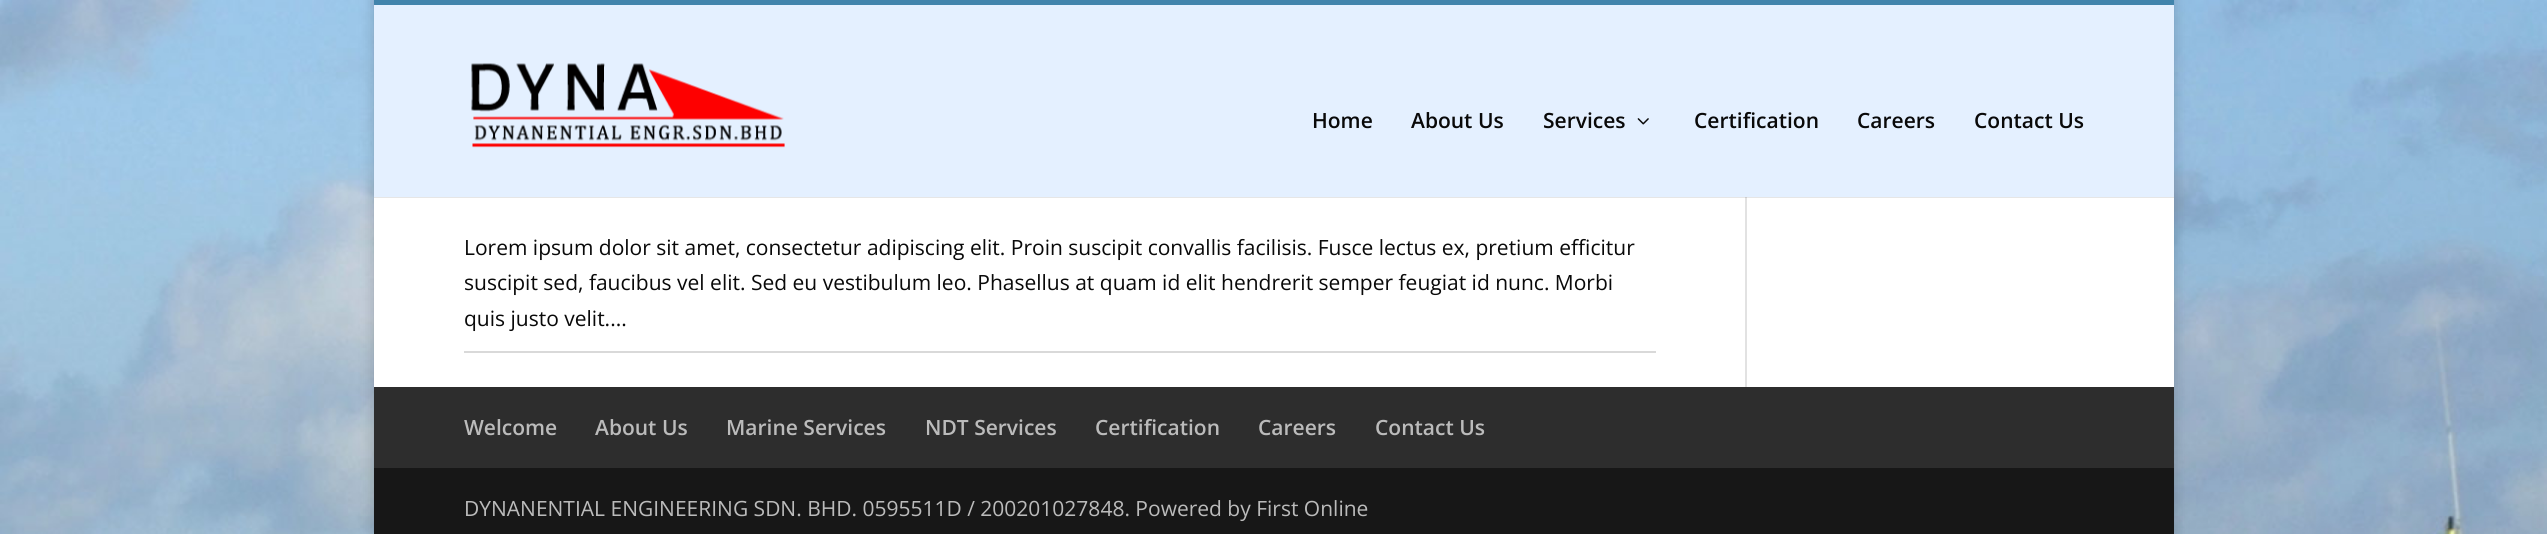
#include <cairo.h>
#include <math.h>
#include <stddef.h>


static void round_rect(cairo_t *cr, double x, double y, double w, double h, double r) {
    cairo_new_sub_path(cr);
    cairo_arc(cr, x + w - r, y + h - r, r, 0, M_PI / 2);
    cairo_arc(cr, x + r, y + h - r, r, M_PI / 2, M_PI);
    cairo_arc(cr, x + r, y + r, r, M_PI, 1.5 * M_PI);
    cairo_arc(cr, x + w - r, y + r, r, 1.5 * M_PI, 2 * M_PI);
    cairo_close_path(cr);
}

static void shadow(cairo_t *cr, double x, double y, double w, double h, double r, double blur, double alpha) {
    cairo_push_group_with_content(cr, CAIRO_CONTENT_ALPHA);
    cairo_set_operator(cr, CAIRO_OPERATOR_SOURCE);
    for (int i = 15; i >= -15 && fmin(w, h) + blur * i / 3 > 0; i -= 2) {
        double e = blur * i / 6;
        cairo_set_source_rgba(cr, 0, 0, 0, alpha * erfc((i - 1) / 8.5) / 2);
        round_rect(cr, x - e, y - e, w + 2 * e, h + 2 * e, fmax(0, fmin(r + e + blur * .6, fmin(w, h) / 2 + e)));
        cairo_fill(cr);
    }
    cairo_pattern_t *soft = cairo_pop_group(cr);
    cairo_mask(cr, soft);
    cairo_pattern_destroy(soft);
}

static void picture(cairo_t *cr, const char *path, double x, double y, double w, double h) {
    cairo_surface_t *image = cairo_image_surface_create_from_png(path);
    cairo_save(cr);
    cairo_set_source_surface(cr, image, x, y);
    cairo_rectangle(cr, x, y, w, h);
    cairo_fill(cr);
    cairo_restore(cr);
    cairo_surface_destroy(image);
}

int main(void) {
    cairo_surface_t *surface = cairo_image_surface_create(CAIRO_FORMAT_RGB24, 2547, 534);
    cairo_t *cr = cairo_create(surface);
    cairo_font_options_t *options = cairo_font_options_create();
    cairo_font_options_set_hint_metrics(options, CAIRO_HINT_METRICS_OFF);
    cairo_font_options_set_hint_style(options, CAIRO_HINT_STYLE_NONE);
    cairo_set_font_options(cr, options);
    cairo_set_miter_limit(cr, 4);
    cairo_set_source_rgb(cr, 1, 1, 1);
    cairo_paint(cr);
    picture(cr, "img1.png", 0, 0, 2547, 534);
    cairo_set_source_rgb(cr, 0, 0, 0);
    shadow(cr, 374, -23, 1800, 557, 0, 7.5, 0.2);
    cairo_set_source_rgb(cr, 1, 1, 1);
    cairo_rectangle(cr, 374, 197, 1800, 190);
    cairo_fill(cr);
    cairo_set_source_rgb(cr, 0.886, 0.886, 0.886);
    cairo_rectangle(cr, 1745, 197, 2, 190);
    cairo_fill(cr);
    cairo_set_source_rgba(cr, 0, 0, 0, 0.1);
    cairo_new_path(cr);
    cairo_move_to(cr, 374, 196);
    cairo_line_to(cr, 374, 198);
    cairo_line_to(cr, 2174, 198);
    cairo_line_to(cr, 2174, 2);
    cairo_line_to(cr, 2174, 196);
    cairo_close_path(cr);
    cairo_fill(cr);
    cairo_set_source_rgb(cr, 0.894, 0.941, 1);
    cairo_rectangle(cr, 374, 5, 1800, 192);
    cairo_fill(cr);
    cairo_set_source_rgb(cr, 0.255, 0.518, 0.675);
    cairo_rectangle(cr, 374, 0, 1800, 5);
    cairo_fill(cr);
    picture(cr, "img2.png", 471, 63, 314, 85);
    cairo_select_font_face(cr, "Open Sans SemiBold", CAIRO_FONT_SLANT_NORMAL, CAIRO_FONT_WEIGHT_NORMAL);
    cairo_set_font_size(cr, 21);
    cairo_set_source_rgb(cr, 0.039, 0.039, 0.039);
    cairo_move_to(cr, 1312, 128);
    cairo_show_text(cr, "Home");
    cairo_move_to(cr, 1411, 128);
    cairo_show_text(cr, "About Us");
    cairo_move_to(cr, 1543, 128);
    cairo_show_text(cr, "Services");
    picture(cr, "img3.png", 1637, 118, 12, 7);
    cairo_move_to(cr, 1694, 128);
    cairo_show_text(cr, "Certification");
    cairo_move_to(cr, 1857, 128);
    cairo_show_text(cr, "Careers");
    cairo_move_to(cr, 1974, 128);
    cairo_show_text(cr, "Contact Us");
    cairo_set_source_rgb(cr, 0.851, 0.851, 0.851);
    cairo_rectangle(cr, 464, 351, 1192, 2);
    cairo_fill(cr);
    cairo_select_font_face(cr, "Open Sans", CAIRO_FONT_SLANT_NORMAL, CAIRO_FONT_WEIGHT_NORMAL);
    cairo_set_source_rgb(cr, 0.039, 0.039, 0.039);
    cairo_move_to(cr, 464, 255);
    cairo_show_text(cr, "Lorem ipsum dolor sit amet, consectetur adipiscing elit. Proin suscipit convallis facilisis. Fusce lectus ex, pretium efficitur");
    cairo_move_to(cr, 464, 290);
    cairo_show_text(cr, "suscipit sed, faucibus vel elit. Sed eu vestibulum leo. Phasellus at quam id elit hendrerit semper feugiat id nunc. Morbi");
    cairo_move_to(cr, 464, 326);
    cairo_show_text(cr, "quis justo velit....");
    cairo_set_source_rgb(cr, 0.176, 0.176, 0.176);
    cairo_rectangle(cr, 374, 387, 1800, 81);
    cairo_fill(cr);
    cairo_select_font_face(cr, "Open Sans SemiBold", CAIRO_FONT_SLANT_NORMAL, CAIRO_FONT_WEIGHT_NORMAL);
    cairo_set_source_rgb(cr, 0.733, 0.733, 0.733);
    cairo_move_to(cr, 464, 435);
    cairo_show_text(cr, "Welcome");
    cairo_move_to(cr, 595, 435);
    cairo_show_text(cr, "About Us");
    cairo_move_to(cr, 726, 435);
    cairo_show_text(cr, "Marine Services");
    cairo_move_to(cr, 925, 435);
    cairo_show_text(cr, "NDT Services");
    cairo_move_to(cr, 1095, 435);
    cairo_show_text(cr, "Certification");
    cairo_move_to(cr, 1258, 435);
    cairo_show_text(cr, "Careers");
    cairo_move_to(cr, 1375, 435);
    cairo_show_text(cr, "Contact Us");
    cairo_set_source_rgb(cr, 0.09, 0.09, 0.09);
    cairo_rectangle(cr, 374, 468, 1800, 66);
    cairo_fill(cr);
    cairo_select_font_face(cr, "Open Sans", CAIRO_FONT_SLANT_NORMAL, CAIRO_FONT_WEIGHT_NORMAL);
    cairo_set_source_rgb(cr, 0.733, 0.733, 0.733);
    cairo_move_to(cr, 464, 516);
    cairo_show_text(cr, "DYNANENTIAL ENGINEERING SDN. BHD. 0595511D / 200201027848. Powered by First Online");
    cairo_surface_write_to_png(surface, "page.png");
    cairo_font_options_destroy(options);
    cairo_destroy(cr);
    cairo_surface_destroy(surface);
    return 0;
}
